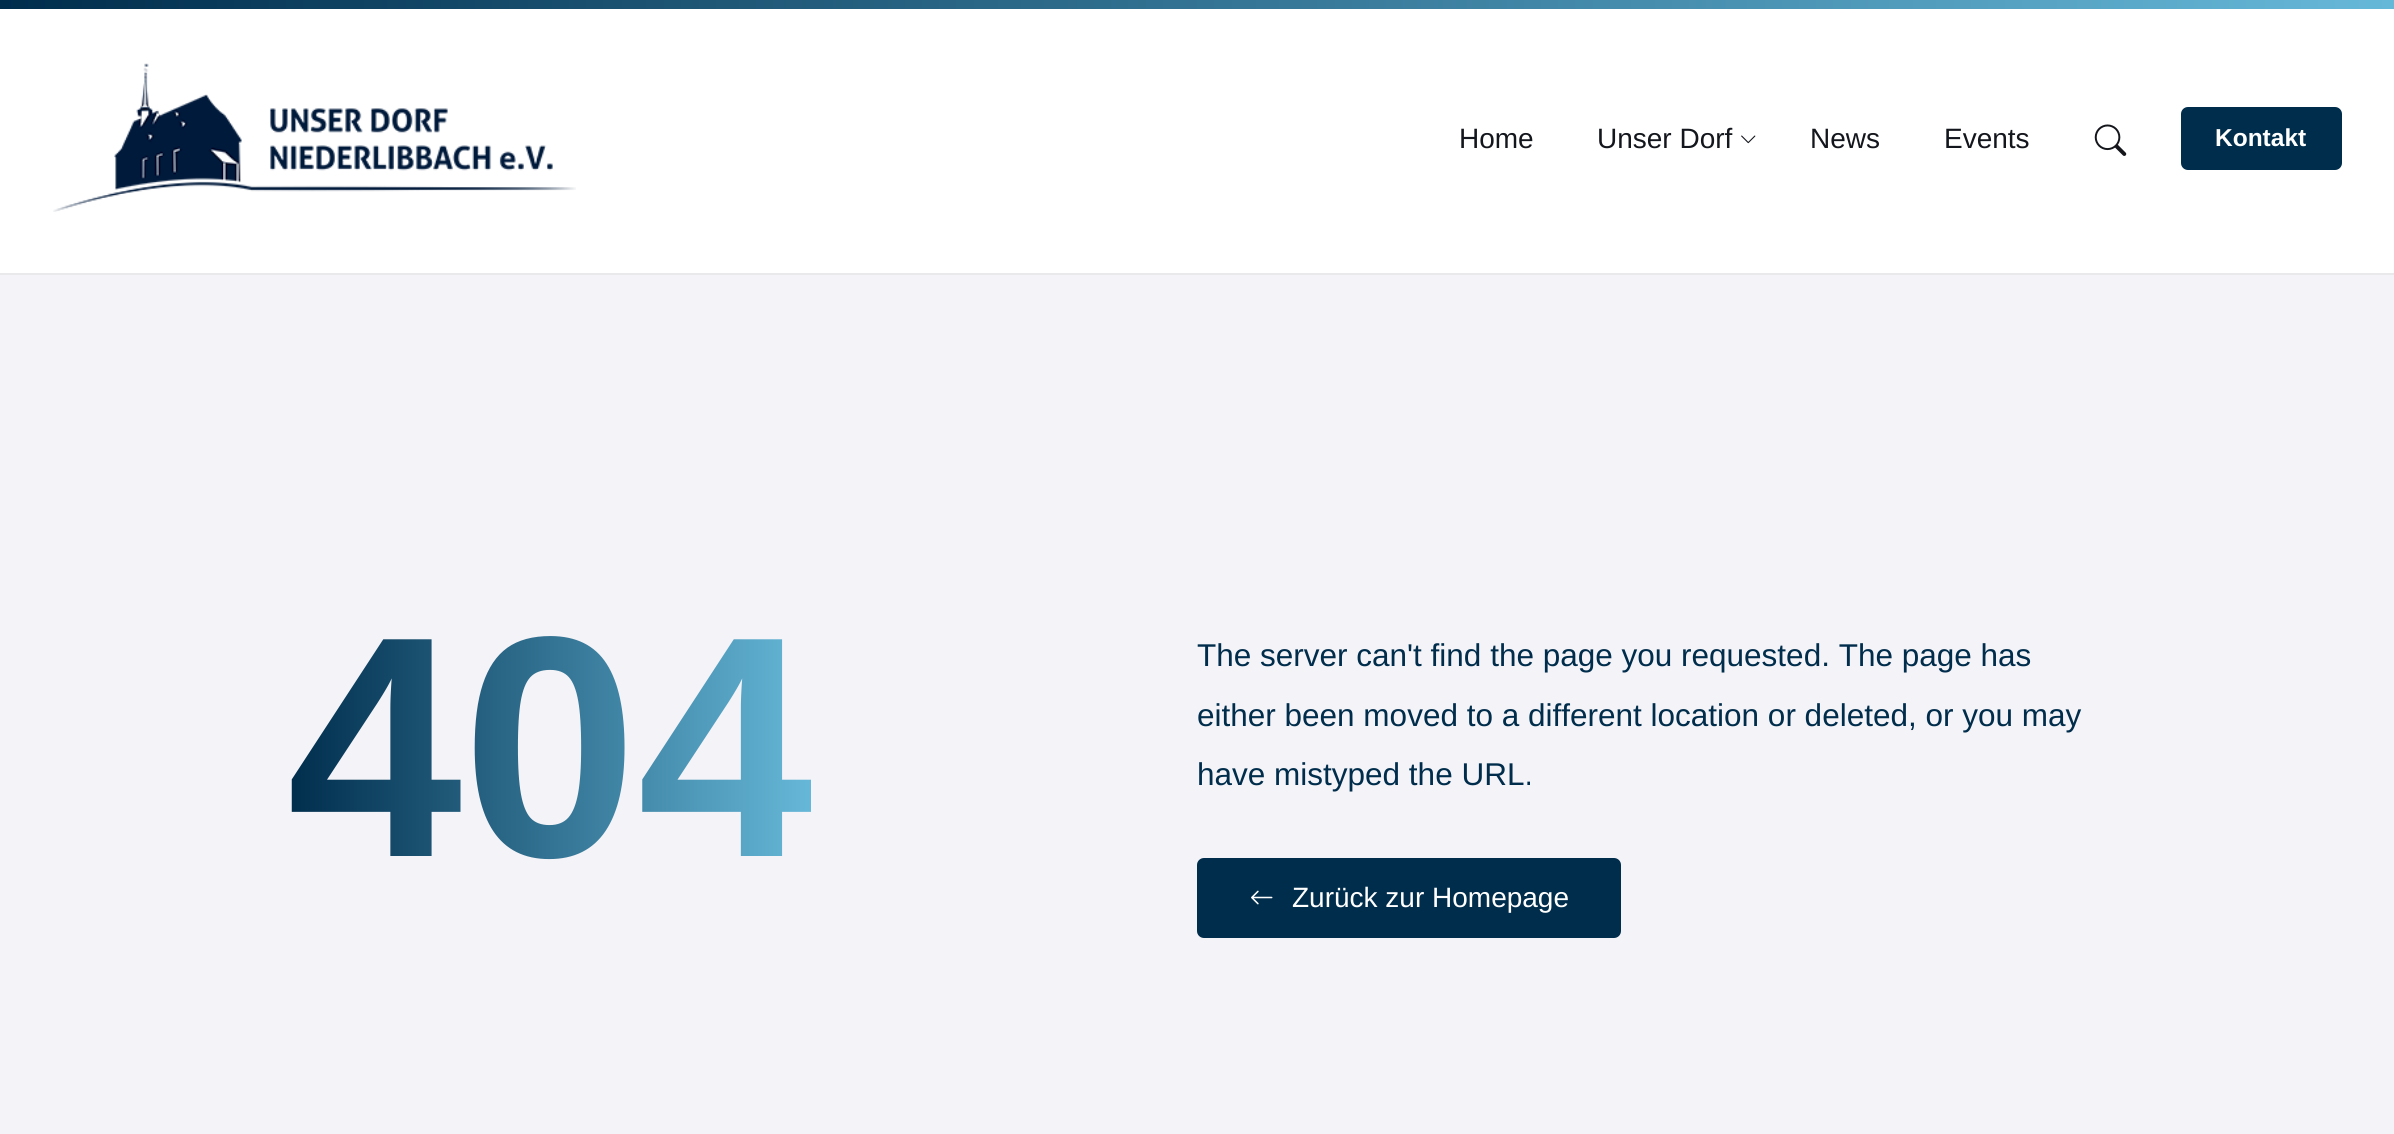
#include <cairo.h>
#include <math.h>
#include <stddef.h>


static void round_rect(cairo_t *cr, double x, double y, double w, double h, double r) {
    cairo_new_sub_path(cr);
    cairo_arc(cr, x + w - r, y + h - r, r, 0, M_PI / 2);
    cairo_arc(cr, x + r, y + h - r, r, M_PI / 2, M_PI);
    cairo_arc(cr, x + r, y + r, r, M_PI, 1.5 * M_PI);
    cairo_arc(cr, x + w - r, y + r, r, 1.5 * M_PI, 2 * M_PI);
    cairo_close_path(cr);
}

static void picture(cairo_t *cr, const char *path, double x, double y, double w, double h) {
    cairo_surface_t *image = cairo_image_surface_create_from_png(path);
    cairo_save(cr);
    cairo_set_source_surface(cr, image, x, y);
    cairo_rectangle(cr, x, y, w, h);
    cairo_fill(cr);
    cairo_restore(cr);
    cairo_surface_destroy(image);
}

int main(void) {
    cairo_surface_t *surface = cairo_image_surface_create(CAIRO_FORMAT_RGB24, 2394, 1134);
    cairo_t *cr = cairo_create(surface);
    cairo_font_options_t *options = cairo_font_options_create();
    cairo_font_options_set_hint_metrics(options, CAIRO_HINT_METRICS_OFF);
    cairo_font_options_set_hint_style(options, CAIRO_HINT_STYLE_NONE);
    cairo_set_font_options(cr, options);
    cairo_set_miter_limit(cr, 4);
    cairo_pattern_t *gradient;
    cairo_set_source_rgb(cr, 1, 1, 1);
    cairo_paint(cr);
    cairo_set_source_rgb(cr, 0.914, 0.914, 0.918);
    cairo_rectangle(cr, 0, 273, 2394, 2);
    cairo_fill(cr);
    gradient = cairo_pattern_create_linear(0, 4.4, 2394, 4.4);
    cairo_pattern_add_color_stop_rgba(gradient, 0, 0, 0.176, 0.298, 1);
    cairo_pattern_add_color_stop_rgba(gradient, 1, 0.4, 0.722, 0.851, 1);
    cairo_set_source(cr, gradient);
    cairo_pattern_destroy(gradient);
    cairo_rectangle(cr, 0, 0, 2394, 9);
    cairo_fill(cr);
    picture(cr, "img1.png", 53, 63, 523, 149);
    cairo_select_font_face(cr, "Liberation Sans", CAIRO_FONT_SLANT_NORMAL, CAIRO_FONT_WEIGHT_NORMAL);
    cairo_set_font_size(cr, 28);
    cairo_set_source_rgb(cr, 0.078, 0.086, 0.11);
    cairo_move_to(cr, 1459, 148);
    cairo_show_text(cr, "Home");
    cairo_move_to(cr, 1597, 148);
    cairo_show_text(cr, "Unser Dorf");
    picture(cr, "img2.png", 1741, 135, 15, 9);
    cairo_move_to(cr, 1810, 148);
    cairo_show_text(cr, "News");
    cairo_move_to(cr, 1944, 148);
    cairo_show_text(cr, "Events");
    picture(cr, "img3.png", 2094, 124, 33, 32);
    cairo_set_source_rgb(cr, 0, 0.176, 0.298);
    round_rect(cr, 2181, 107, 161, 63, 7);
    cairo_fill(cr);
    cairo_select_font_face(cr, "Liberation Sans", CAIRO_FONT_SLANT_NORMAL, CAIRO_FONT_WEIGHT_BOLD);
    cairo_set_font_size(cr, 24.5);
    cairo_set_source_rgb(cr, 1, 1, 1);
    cairo_move_to(cr, 2215, 146);
    cairo_show_text(cr, "Kontakt");
    cairo_set_source_rgb(cr, 0.957, 0.953, 0.965);
    cairo_rectangle(cr, 0, 275, 2394, 859);
    cairo_fill(cr);
    cairo_set_font_size(cr, 315);
    gradient = cairo_pattern_create_linear(287, 748, 813, 748);
    cairo_pattern_add_color_stop_rgba(gradient, 0, 0, 0.176, 0.298, 1);
    cairo_pattern_add_color_stop_rgba(gradient, 1, 0.4, 0.722, 0.851, 1);
    cairo_set_source(cr, gradient);
    cairo_pattern_destroy(gradient);
    cairo_move_to(cr, 287, 856);
    cairo_show_text(cr, "404");
    cairo_select_font_face(cr, "Liberation Sans", CAIRO_FONT_SLANT_NORMAL, CAIRO_FONT_WEIGHT_NORMAL);
    cairo_set_font_size(cr, 31.5);
    cairo_set_source_rgb(cr, 0, 0.176, 0.298);
    cairo_move_to(cr, 1197, 666);
    cairo_show_text(cr, "The server can't find the page you requested. The page has");
    cairo_move_to(cr, 1197, 726);
    cairo_show_text(cr, "either been moved to a different location or deleted, or you may");
    cairo_move_to(cr, 1197, 785);
    cairo_show_text(cr, "have mistyped the URL.");
    round_rect(cr, 1197, 858, 424, 80, 7);
    cairo_fill(cr);
    picture(cr, "img4.png", 1251, 890, 22, 15);
    cairo_set_font_size(cr, 28);
    cairo_set_source_rgb(cr, 1, 1, 1);
    cairo_move_to(cr, 1292, 907);
    cairo_show_text(cr, "Zurück zur Homepage");
    cairo_surface_write_to_png(surface, "page.png");
    cairo_font_options_destroy(options);
    cairo_destroy(cr);
    cairo_surface_destroy(surface);
    return 0;
}
